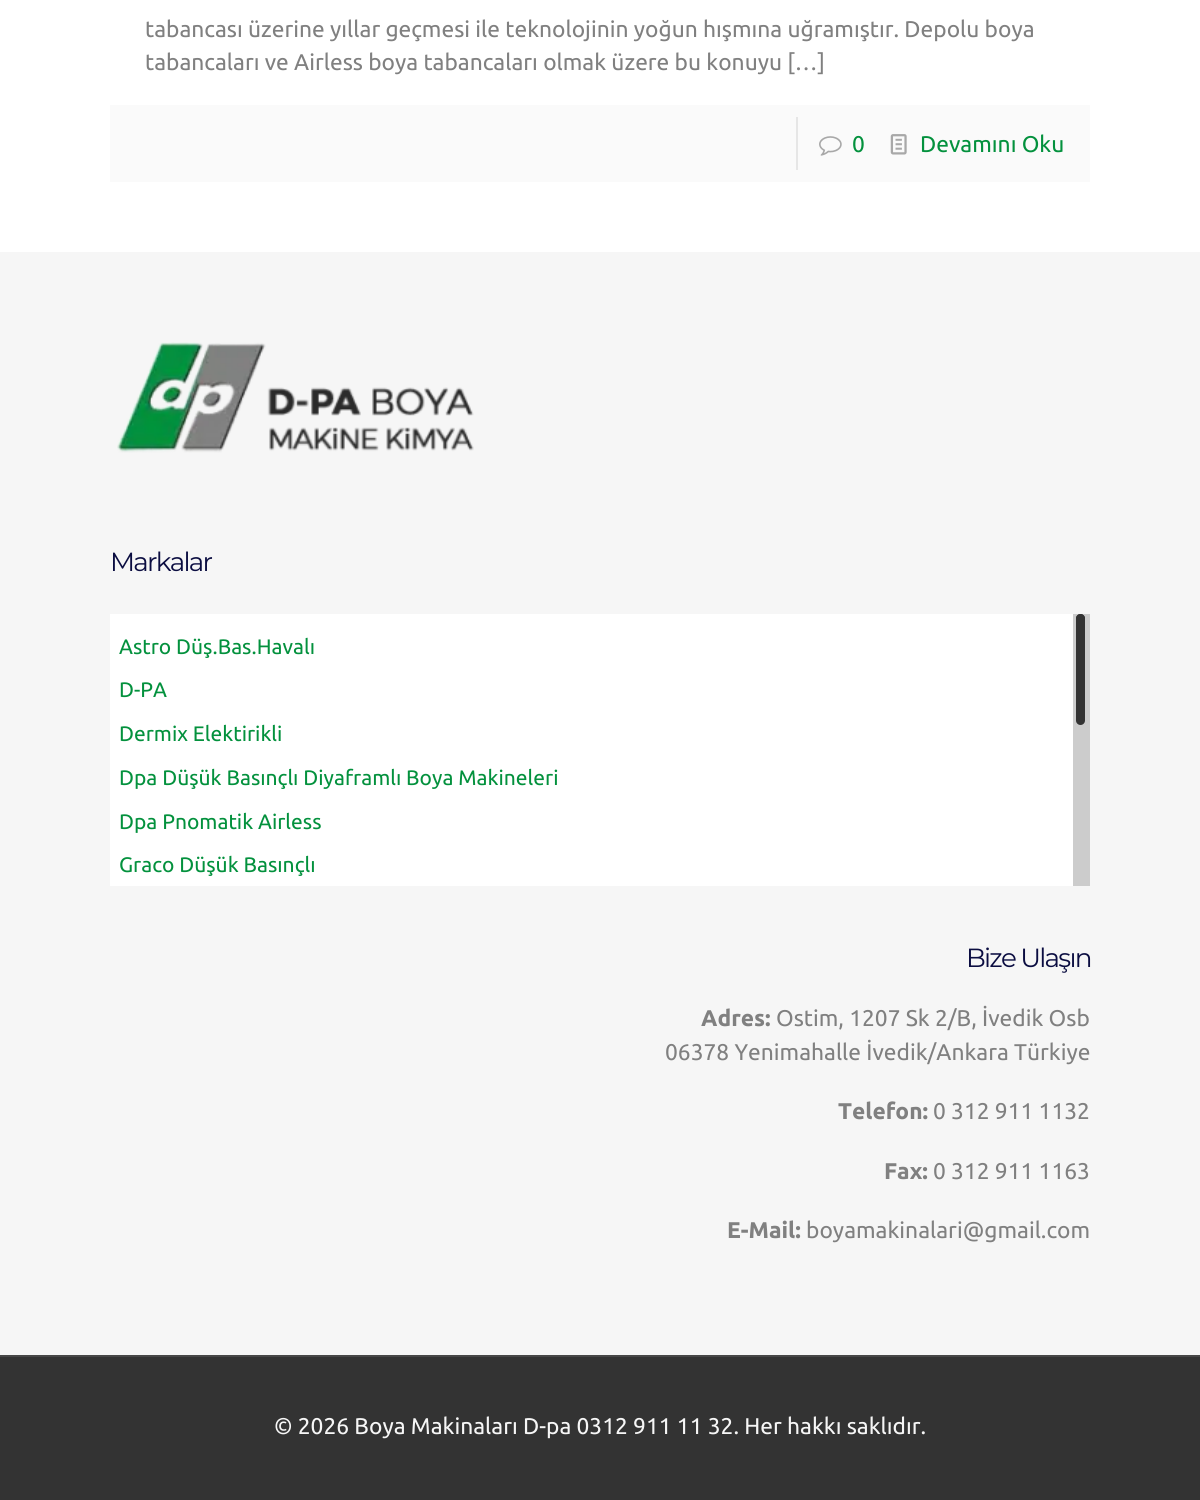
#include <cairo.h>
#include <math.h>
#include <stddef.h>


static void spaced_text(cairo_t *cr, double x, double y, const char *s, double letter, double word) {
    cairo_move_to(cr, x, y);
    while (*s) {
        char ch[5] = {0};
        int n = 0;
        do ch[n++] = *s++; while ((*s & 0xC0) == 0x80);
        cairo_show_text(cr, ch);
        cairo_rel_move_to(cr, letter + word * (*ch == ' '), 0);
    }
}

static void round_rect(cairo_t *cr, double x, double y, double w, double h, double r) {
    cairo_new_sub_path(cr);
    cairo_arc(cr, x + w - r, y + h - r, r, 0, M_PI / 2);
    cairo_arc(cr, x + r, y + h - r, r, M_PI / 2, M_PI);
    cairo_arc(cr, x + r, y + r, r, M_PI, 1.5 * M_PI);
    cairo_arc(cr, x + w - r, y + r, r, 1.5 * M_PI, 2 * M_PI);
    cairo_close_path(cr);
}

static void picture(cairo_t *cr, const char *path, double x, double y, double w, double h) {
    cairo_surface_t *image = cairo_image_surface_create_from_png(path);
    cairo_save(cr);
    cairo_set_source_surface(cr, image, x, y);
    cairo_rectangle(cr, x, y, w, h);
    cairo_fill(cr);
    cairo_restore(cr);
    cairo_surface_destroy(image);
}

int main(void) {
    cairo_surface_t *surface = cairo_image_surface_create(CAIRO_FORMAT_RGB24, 1200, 1500);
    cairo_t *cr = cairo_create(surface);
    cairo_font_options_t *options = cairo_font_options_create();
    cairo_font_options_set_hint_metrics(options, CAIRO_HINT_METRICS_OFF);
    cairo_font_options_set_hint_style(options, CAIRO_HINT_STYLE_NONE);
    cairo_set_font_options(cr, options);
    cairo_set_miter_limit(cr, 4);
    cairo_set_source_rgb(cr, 1, 1, 1);
    cairo_paint(cr);
    cairo_select_font_face(cr, "Ubuntu", CAIRO_FONT_SLANT_NORMAL, CAIRO_FONT_WEIGHT_NORMAL);
    cairo_set_font_size(cr, 22.75);
    cairo_set_source_rgb(cr, 0.502, 0.502, 0.502);
    cairo_move_to(cr, 145, 37);
    cairo_show_text(cr, "tabancası üzerine yıllar geçmesi ile teknolojinin yoğun hışmına uğramıştır. Depolu boya");
    cairo_move_to(cr, 145, 70);
    cairo_show_text(cr, "tabancaları ve Airless boya tabancaları olmak üzere bu konuyu […]");
    cairo_set_source_rgb(cr, 0.98, 0.98, 0.98);
    cairo_rectangle(cr, 110, 105, 980, 77);
    cairo_fill(cr);
    cairo_set_source_rgb(cr, 0.902, 0.902, 0.902);
    cairo_rectangle(cr, 796, 117, 2, 53);
    cairo_fill(cr);
    picture(cr, "img1.png", 819, 136, 23, 20);
    cairo_set_source_rgb(cr, 0.012, 0.569, 0.239);
    cairo_move_to(cr, 852, 152);
    cairo_show_text(cr, "0");
    picture(cr, "img2.png", 890, 134, 17, 21);
    cairo_move_to(cr, 920, 152);
    cairo_show_text(cr, "Devamını Oku");
    cairo_set_source_rgb(cr, 0.961, 0.961, 0.961);
    cairo_rectangle(cr, 0, 252, 1200, 1103);
    cairo_fill(cr);
    picture(cr, "img3.png", 117, 342, 357, 111);
    cairo_select_font_face(cr, "Montserrat", CAIRO_FONT_SLANT_NORMAL, CAIRO_FONT_WEIGHT_NORMAL);
    cairo_set_font_size(cr, 26.25);
    cairo_set_source_rgb(cr, 0.043, 0.051, 0.255);
    spaced_text(cr, 110, 571, "Markalar", -1.75, 0);
    cairo_set_source_rgb(cr, 1, 1, 1);
    cairo_rectangle(cr, 110, 614, 963, 272);
    cairo_fill(cr);
    cairo_select_font_face(cr, "Ubuntu", CAIRO_FONT_SLANT_NORMAL, CAIRO_FONT_WEIGHT_NORMAL);
    cairo_set_font_size(cr, 21);
    cairo_set_source_rgb(cr, 0.012, 0.569, 0.239);
    cairo_move_to(cr, 119, 654);
    cairo_show_text(cr, "Astro Düş.Bas.Havalı");
    cairo_move_to(cr, 119, 697);
    cairo_show_text(cr, "D-PA");
    cairo_move_to(cr, 119, 741);
    cairo_show_text(cr, "Dermix Elektirikli");
    cairo_move_to(cr, 119, 785);
    cairo_show_text(cr, "Dpa Düşük Basınçlı Diyaframlı Boya Makineleri");
    cairo_move_to(cr, 119, 829);
    cairo_show_text(cr, "Dpa Pnomatik Airless");
    cairo_move_to(cr, 119, 872);
    cairo_show_text(cr, "Graco Düşük Basınçlı");
    cairo_set_source_rgb(cr, 0.8, 0.8, 0.8);
    cairo_rectangle(cr, 1073, 614, 17, 272);
    cairo_fill(cr);
    cairo_set_source_rgb(cr, 0.2, 0.2, 0.2);
    round_rect(cr, 1076, 614, 9, 111, 4.5);
    cairo_fill(cr);
    cairo_new_path(cr);
    cairo_move_to(cr, 1080.5, 614);
    cairo_curve_to(cr, 1083, 614, 1085, 616, 1085, 618.5);
    cairo_line_to(cr, 1085, 623);
    cairo_line_to(cr, 1080.5, 623);
    cairo_curve_to(cr, 1078, 623, 1076, 621, 1076, 618.5);
    cairo_curve_to(cr, 1076, 616, 1078, 614, 1080.5, 614);
    cairo_close_path(cr);
    cairo_fill(cr);
    cairo_select_font_face(cr, "Montserrat", CAIRO_FONT_SLANT_NORMAL, CAIRO_FONT_WEIGHT_NORMAL);
    cairo_set_font_size(cr, 26.25);
    cairo_set_source_rgb(cr, 0.043, 0.051, 0.255);
    spaced_text(cr, 966, 967, "Bize Ulaşın", -1.75, 0);
    cairo_select_font_face(cr, "Ubuntu", CAIRO_FONT_SLANT_NORMAL, CAIRO_FONT_WEIGHT_BOLD);
    cairo_set_font_size(cr, 22.75);
    cairo_set_source_rgb(cr, 0.502, 0.502, 0.502);
    cairo_move_to(cr, 701, 1026);
    cairo_show_text(cr, "Adres:");
    cairo_select_font_face(cr, "Ubuntu", CAIRO_FONT_SLANT_NORMAL, CAIRO_FONT_WEIGHT_NORMAL);
    cairo_move_to(cr, 776, 1026);
    cairo_show_text(cr, "Ostim, 1207 Sk 2/B, İvedik Osb");
    cairo_move_to(cr, 665, 1060);
    cairo_show_text(cr, "06378 Yenimahalle İvedik/Ankara Türkiye");
    cairo_select_font_face(cr, "Ubuntu", CAIRO_FONT_SLANT_NORMAL, CAIRO_FONT_WEIGHT_BOLD);
    cairo_move_to(cr, 838, 1119);
    cairo_show_text(cr, "Telefon:");
    cairo_select_font_face(cr, "Ubuntu", CAIRO_FONT_SLANT_NORMAL, CAIRO_FONT_WEIGHT_NORMAL);
    cairo_move_to(cr, 933, 1119);
    cairo_show_text(cr, "0 312 911 1132");
    cairo_select_font_face(cr, "Ubuntu", CAIRO_FONT_SLANT_NORMAL, CAIRO_FONT_WEIGHT_BOLD);
    cairo_move_to(cr, 884, 1179);
    cairo_show_text(cr, "Fax:");
    cairo_select_font_face(cr, "Ubuntu", CAIRO_FONT_SLANT_NORMAL, CAIRO_FONT_WEIGHT_NORMAL);
    cairo_move_to(cr, 933, 1179);
    cairo_show_text(cr, "0 312 911 1163");
    cairo_select_font_face(cr, "Ubuntu", CAIRO_FONT_SLANT_NORMAL, CAIRO_FONT_WEIGHT_BOLD);
    cairo_move_to(cr, 727, 1238);
    cairo_show_text(cr, "E-Mail:");
    cairo_select_font_face(cr, "Ubuntu", CAIRO_FONT_SLANT_NORMAL, CAIRO_FONT_WEIGHT_NORMAL);
    cairo_move_to(cr, 806, 1238);
    cairo_show_text(cr, "boyamakinalari@gmail.com");
    cairo_set_source_rgb(cr, 0.2, 0.2, 0.2);
    cairo_rectangle(cr, 0, 1357, 1200, 143);
    cairo_fill(cr);
    cairo_set_source_rgb(cr, 0.278, 0.278, 0.278);
    cairo_rectangle(cr, 0, 1355, 1200, 2);
    cairo_fill(cr);
    cairo_set_source_rgb(cr, 0.961, 0.961, 0.961);
    cairo_move_to(cr, 274, 1434);
    cairo_show_text(cr, "© 2026 Boya Makinaları D-pa 0312 911 11 32. Her hakkı saklıdır.");
    cairo_surface_write_to_png(surface, "page.png");
    cairo_font_options_destroy(options);
    cairo_destroy(cr);
    cairo_surface_destroy(surface);
    return 0;
}
